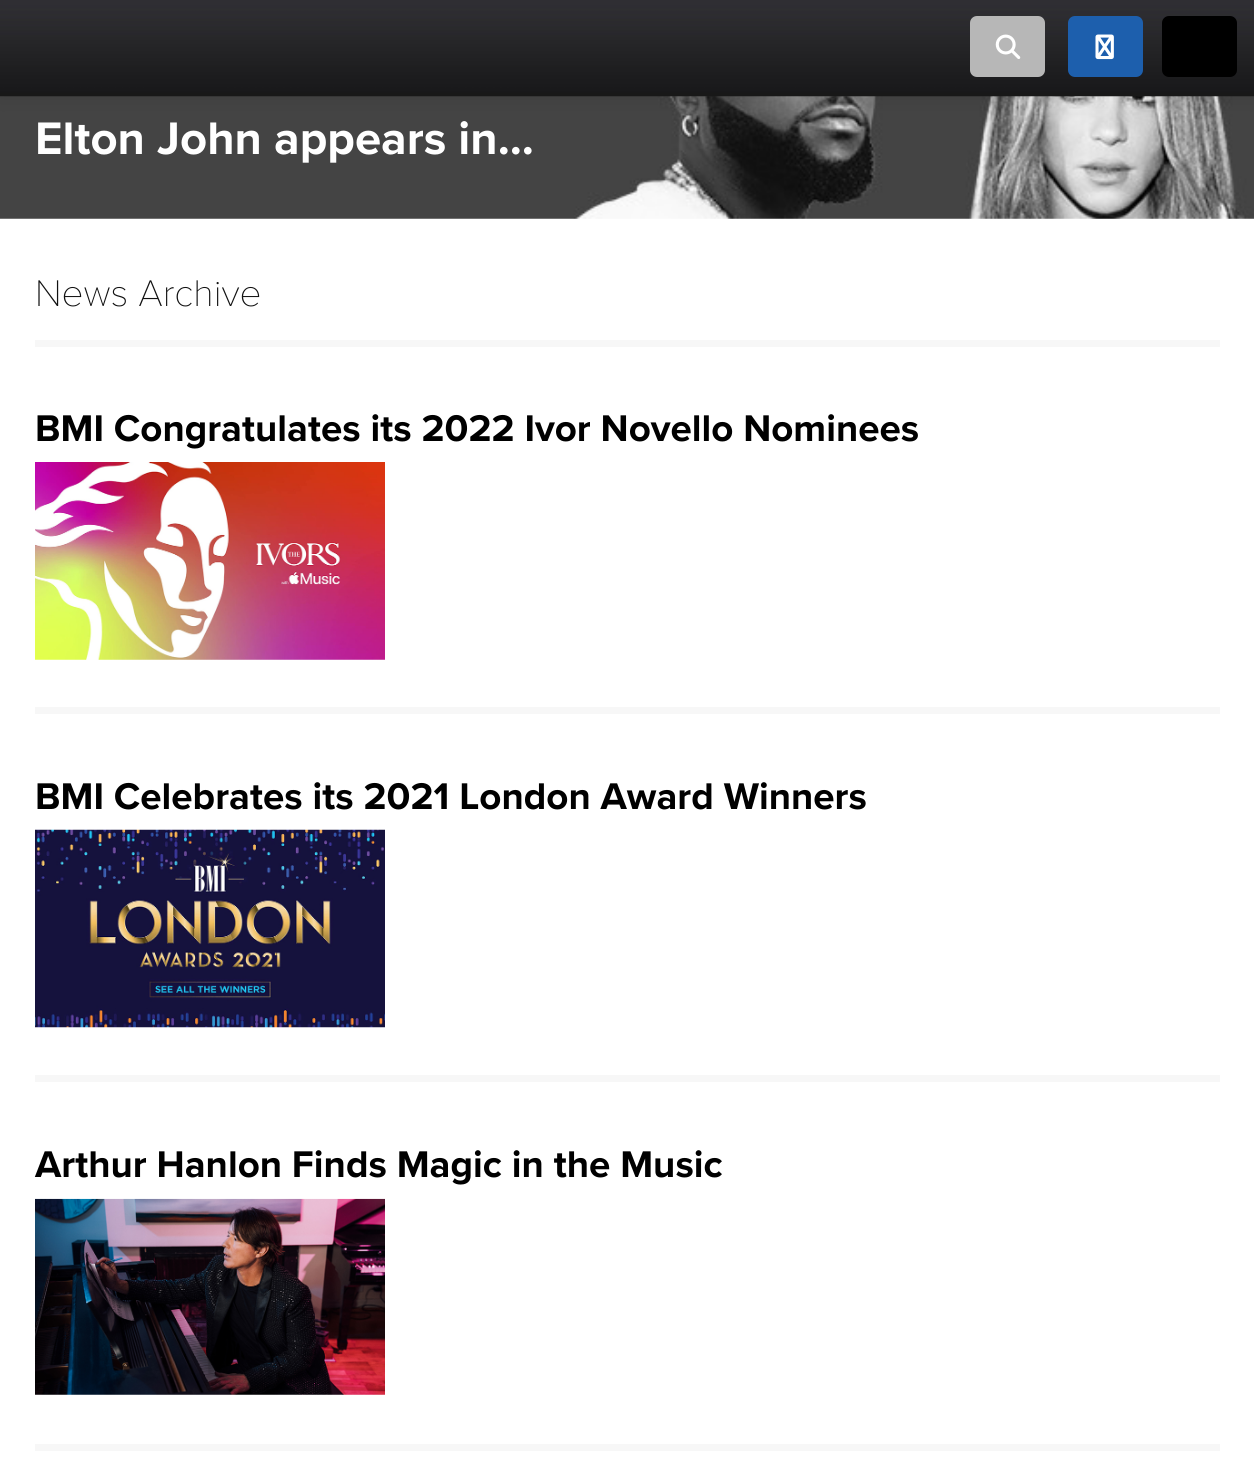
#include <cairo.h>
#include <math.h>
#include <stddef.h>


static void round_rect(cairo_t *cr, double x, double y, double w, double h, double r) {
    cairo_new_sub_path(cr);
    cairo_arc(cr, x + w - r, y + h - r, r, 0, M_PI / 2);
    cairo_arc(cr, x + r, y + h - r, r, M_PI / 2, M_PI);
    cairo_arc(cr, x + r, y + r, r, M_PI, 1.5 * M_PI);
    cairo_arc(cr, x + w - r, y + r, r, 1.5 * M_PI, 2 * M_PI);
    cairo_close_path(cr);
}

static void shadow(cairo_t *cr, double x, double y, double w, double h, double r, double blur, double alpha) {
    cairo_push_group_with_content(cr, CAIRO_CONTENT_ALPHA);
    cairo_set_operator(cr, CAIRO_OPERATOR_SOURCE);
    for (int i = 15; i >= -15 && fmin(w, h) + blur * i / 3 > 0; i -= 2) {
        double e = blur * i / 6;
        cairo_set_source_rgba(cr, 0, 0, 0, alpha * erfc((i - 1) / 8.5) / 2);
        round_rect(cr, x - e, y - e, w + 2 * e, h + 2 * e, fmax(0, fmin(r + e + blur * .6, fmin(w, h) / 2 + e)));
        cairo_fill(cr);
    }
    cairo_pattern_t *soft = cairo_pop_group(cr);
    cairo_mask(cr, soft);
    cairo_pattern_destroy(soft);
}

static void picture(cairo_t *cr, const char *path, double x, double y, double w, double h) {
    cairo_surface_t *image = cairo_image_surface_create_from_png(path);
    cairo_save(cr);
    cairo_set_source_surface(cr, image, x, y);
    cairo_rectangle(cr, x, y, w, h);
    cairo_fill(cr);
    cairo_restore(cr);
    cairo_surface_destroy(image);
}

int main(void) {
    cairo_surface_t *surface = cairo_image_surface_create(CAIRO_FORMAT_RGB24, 1254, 1462);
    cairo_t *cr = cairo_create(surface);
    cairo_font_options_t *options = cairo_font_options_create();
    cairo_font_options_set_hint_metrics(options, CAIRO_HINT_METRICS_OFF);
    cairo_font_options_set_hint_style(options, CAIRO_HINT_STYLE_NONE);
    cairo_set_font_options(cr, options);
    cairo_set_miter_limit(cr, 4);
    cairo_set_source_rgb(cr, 1, 1, 1);
    cairo_paint(cr);
    picture(cr, "img4.png", 0, 96, 1254, 123);
    cairo_set_source_rgb(cr, 0, 0, 0);
    shadow(cr, 0, 2, 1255, 96, 0, 9, 0.1);
    picture(cr, "img1.png", 0, 0, 1254, 97);
    cairo_set_source_rgb(cr, 0.718, 0.718, 0.718);
    round_rect(cr, 970, 16, 75, 61, 7);
    cairo_fill(cr);
    picture(cr, "img2.png", 995, 34, 26, 25);
    cairo_set_source_rgb(cr, 0.114, 0.373, 0.678);
    round_rect(cr, 1068, 16, 75, 61, 7);
    cairo_fill(cr);
    picture(cr, "img3.png", 1095, 34, 19, 26);
    cairo_set_source_rgb(cr, 0, 0, 0);
    round_rect(cr, 1162, 16, 75, 61, 7);
    cairo_fill(cr);
    cairo_select_font_face(cr, "Proxima Nova", CAIRO_FONT_SLANT_NORMAL, CAIRO_FONT_WEIGHT_BOLD);
    cairo_set_font_size(cr, 47.25);
    cairo_set_source_rgb(cr, 1, 1, 1);
    cairo_move_to(cr, 35, 154);
    cairo_show_text(cr, "Elton John appears in...");
    cairo_set_source_rgb(cr, 0.965, 0.965, 0.965);
    cairo_rectangle(cr, 35, 340, 1185, 7);
    cairo_fill(cr);
    cairo_select_font_face(cr, "Proxima Nova Thin", CAIRO_FONT_SLANT_NORMAL, CAIRO_FONT_WEIGHT_NORMAL);
    cairo_set_font_size(cr, 38.5);
    cairo_set_source_rgb(cr, 0.067, 0.067, 0.067);
    cairo_move_to(cr, 35, 306);
    cairo_show_text(cr, "News Archive");
    cairo_set_source_rgb(cr, 0.965, 0.965, 0.965);
    cairo_rectangle(cr, 35, 707, 1185, 7);
    cairo_fill(cr);
    cairo_select_font_face(cr, "Proxima Nova", CAIRO_FONT_SLANT_NORMAL, CAIRO_FONT_WEIGHT_BOLD);
    cairo_set_source_rgb(cr, 0, 0, 0);
    cairo_move_to(cr, 35, 441);
    cairo_show_text(cr, "BMI Congratulates its 2022 Ivor Novello Nominees");
    picture(cr, "img5.png", 35, 462, 350, 198);
    cairo_set_source_rgb(cr, 0.965, 0.965, 0.965);
    cairo_rectangle(cr, 35, 1075, 1185, 7);
    cairo_fill(cr);
    cairo_set_source_rgb(cr, 0, 0, 0);
    cairo_move_to(cr, 35, 809);
    cairo_show_text(cr, "BMI Celebrates its 2021 London Award Winners");
    picture(cr, "img6.png", 35, 829, 350, 199);
    cairo_set_source_rgb(cr, 0.965, 0.965, 0.965);
    cairo_rectangle(cr, 35, 1444, 1185, 7);
    cairo_fill(cr);
    cairo_set_source_rgb(cr, 0, 0, 0);
    cairo_move_to(cr, 35, 1177);
    cairo_show_text(cr, "Arthur Hanlon Finds Magic in the Music");
    picture(cr, "img7.png", 35, 1198, 350, 197);
    cairo_surface_write_to_png(surface, "page.png");
    cairo_font_options_destroy(options);
    cairo_destroy(cr);
    cairo_surface_destroy(surface);
    return 0;
}
